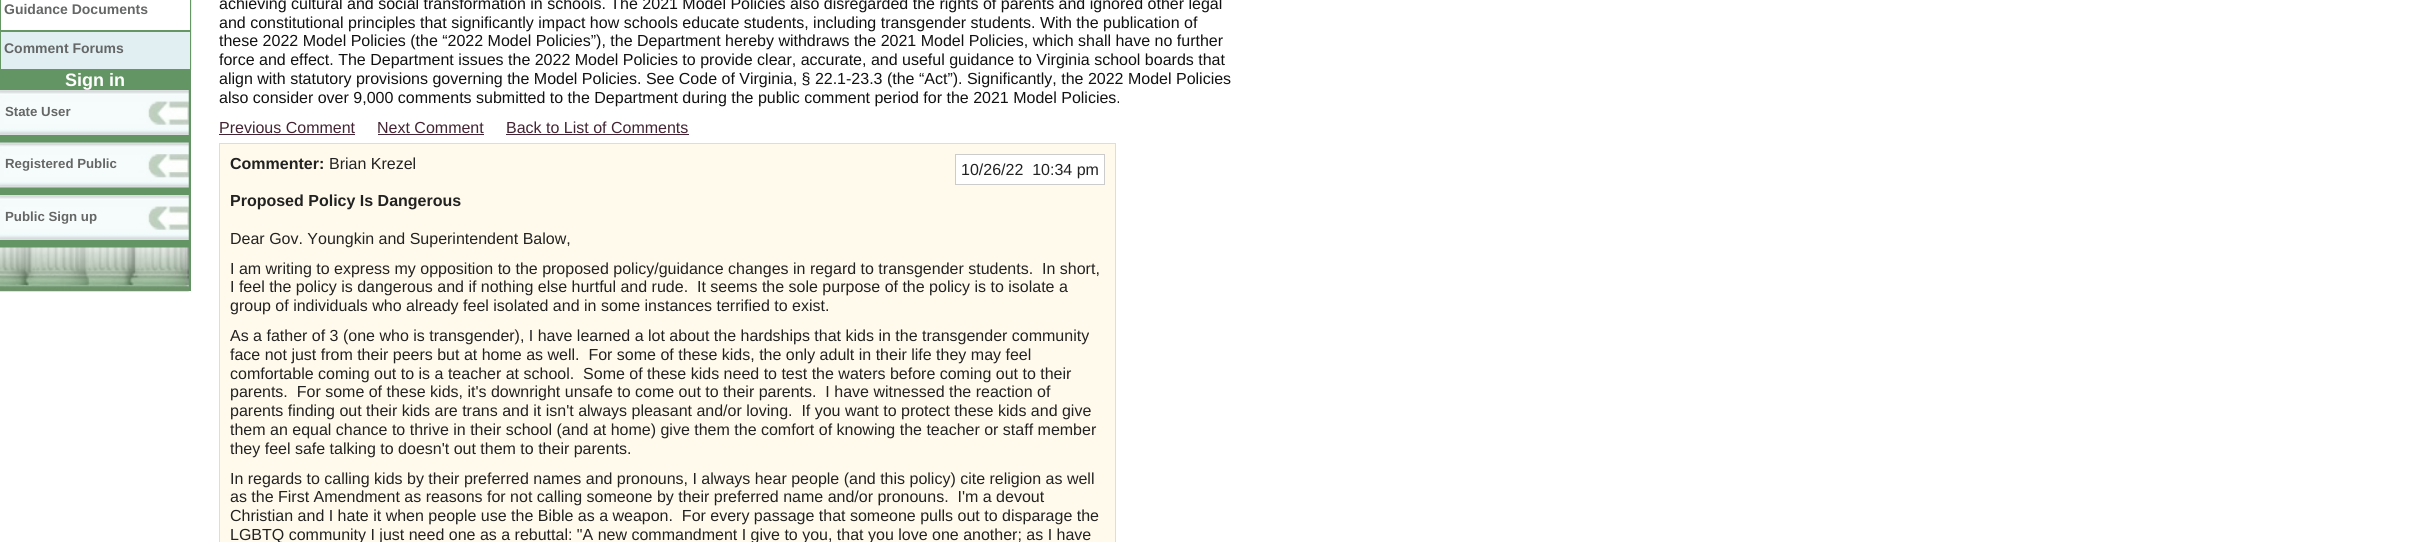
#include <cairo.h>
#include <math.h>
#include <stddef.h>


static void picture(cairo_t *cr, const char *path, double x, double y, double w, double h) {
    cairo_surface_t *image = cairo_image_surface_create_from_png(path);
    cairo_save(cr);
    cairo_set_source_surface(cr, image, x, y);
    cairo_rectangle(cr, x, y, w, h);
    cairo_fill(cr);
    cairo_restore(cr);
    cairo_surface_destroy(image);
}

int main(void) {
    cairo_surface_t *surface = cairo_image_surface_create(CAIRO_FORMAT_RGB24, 2412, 542);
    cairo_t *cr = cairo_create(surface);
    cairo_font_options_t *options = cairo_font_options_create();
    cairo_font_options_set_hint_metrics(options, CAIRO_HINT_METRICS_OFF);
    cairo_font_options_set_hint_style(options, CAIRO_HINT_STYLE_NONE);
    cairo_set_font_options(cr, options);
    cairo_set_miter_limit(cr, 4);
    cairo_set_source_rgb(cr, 1, 1, 1);
    cairo_paint(cr);
    cairo_set_source_rgb(cr, 0.388, 0.584, 0.392);
    cairo_rectangle(cr, 0, 70, 191, 221);
    cairo_fill(cr);
    picture(cr, "img1.png", 191, 0, 1, 70);
    cairo_rectangle(cr, 0.5, -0.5, 190, 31);
    cairo_set_source_rgb(cr, 0.396, 0.592, 0.392);
    cairo_set_line_width(cr, 1);
    cairo_stroke(cr);
    cairo_select_font_face(cr, "Liberation Sans", CAIRO_FONT_SLANT_NORMAL, CAIRO_FONT_WEIGHT_BOLD);
    cairo_set_font_size(cr, 14);
    cairo_set_source_rgb(cr, 0.396, 0.404, 0.4);
    cairo_move_to(cr, 4, 14);
    cairo_show_text(cr, "Guidance Documents");
    cairo_set_source_rgb(cr, 0.882, 0.937, 0.949);
    cairo_rectangle(cr, 0.5, 31.5, 190, 38);
    cairo_fill_preserve(cr);
    cairo_set_source_rgb(cr, 0.396, 0.592, 0.392);
    cairo_stroke(cr);
    cairo_set_source_rgb(cr, 0.396, 0.404, 0.4);
    cairo_move_to(cr, 4, 53);
    cairo_show_text(cr, "Comment Forums");
    cairo_set_font_size(cr, 18);
    cairo_set_source_rgb(cr, 1, 1, 1);
    cairo_move_to(cr, 65, 86);
    cairo_show_text(cr, "Sign in");
    picture(cr, "img2.png", 0, 90, 189, 45);
    cairo_set_font_size(cr, 13.25);
    cairo_set_source_rgb(cr, 0.396, 0.404, 0.4);
    cairo_move_to(cr, 5, 116);
    cairo_show_text(cr, "State User");
    picture(cr, "img3.png", 0, 142, 189, 46);
    cairo_move_to(cr, 5, 168);
    cairo_show_text(cr, "Registered Public");
    picture(cr, "img4.png", 0, 195, 189, 45);
    cairo_move_to(cr, 5, 221);
    cairo_show_text(cr, "Public Sign up");
    picture(cr, "img5.png", 0, 247, 189, 45);
    cairo_select_font_face(cr, "Liberation Sans", CAIRO_FONT_SLANT_NORMAL, CAIRO_FONT_WEIGHT_NORMAL);
    cairo_set_font_size(cr, 16);
    cairo_set_source_rgb(cr, 0.067, 0.067, 0.067);
    cairo_move_to(cr, 219, 9);
    cairo_show_text(cr, "achieving cultural and social transformation in schools. The 2021 Model Policies also disregarded the rights of parents and ignored other legal");
    cairo_move_to(cr, 219, 28);
    cairo_show_text(cr, "and constitutional principles that significantly impact how schools educate students, including transgender students. With the publication of");
    cairo_move_to(cr, 219, 46);
    cairo_show_text(cr, "these 2022 Model Policies (the “2022 Model Policies”), the Department hereby withdraws the 2021 Model Policies, which shall have no further");
    cairo_move_to(cr, 219, 65);
    cairo_show_text(cr, "force and effect. The Department issues the 2022 Model Policies to provide clear, accurate, and useful guidance to Virginia school boards that");
    cairo_move_to(cr, 219, 84);
    cairo_show_text(cr, "align with statutory provisions governing the Model Policies. See Code of Virginia, § 22.1-23.3 (the “Act”). Significantly, the 2022 Model Policies");
    cairo_move_to(cr, 219, 103);
    cairo_show_text(cr, "also consider over 9,000 comments submitted to the Department during the public comment period for the 2021 Model Policies.");
    cairo_set_source_rgb(cr, 0.263, 0.141, 0.196);
    cairo_move_to(cr, 219, 133);
    cairo_show_text(cr, "Previous Comment");
    cairo_rectangle(cr, 219, 134, 136, 1);
    cairo_fill(cr);
    cairo_move_to(cr, 377, 133);
    cairo_show_text(cr, "Next Comment");
    cairo_rectangle(cr, 378, 134, 106, 1);
    cairo_fill(cr);
    cairo_move_to(cr, 506, 133);
    cairo_show_text(cr, "Back to List of Comments");
    cairo_rectangle(cr, 506, 134, 183, 1);
    cairo_fill(cr);
    cairo_set_source_rgb(cr, 1, 0.98, 0.918);
    cairo_rectangle(cr, 219.5, 143.5, 896, 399);
    cairo_fill_preserve(cr);
    cairo_set_source_rgb(cr, 0.867, 0.867, 0.867);
    cairo_stroke(cr);
    cairo_select_font_face(cr, "Liberation Sans", CAIRO_FONT_SLANT_NORMAL, CAIRO_FONT_WEIGHT_BOLD);
    cairo_set_source_rgb(cr, 0.133, 0.133, 0.133);
    cairo_move_to(cr, 230, 169);
    cairo_show_text(cr, "Commenter:");
    cairo_select_font_face(cr, "Liberation Sans", CAIRO_FONT_SLANT_NORMAL, CAIRO_FONT_WEIGHT_NORMAL);
    cairo_move_to(cr, 329, 169);
    cairo_show_text(cr, "Brian Krezel");
    cairo_select_font_face(cr, "Liberation Sans", CAIRO_FONT_SLANT_NORMAL, CAIRO_FONT_WEIGHT_BOLD);
    cairo_move_to(cr, 230, 206);
    cairo_show_text(cr, "Proposed Policy Is Dangerous");
    cairo_set_source_rgb(cr, 1, 1, 1);
    cairo_rectangle(cr, 955.5, 154.5, 149, 30);
    cairo_fill_preserve(cr);
    cairo_set_source_rgb(cr, 0.8, 0.8, 0.8);
    cairo_stroke(cr);
    cairo_select_font_face(cr, "Liberation Sans", CAIRO_FONT_SLANT_NORMAL, CAIRO_FONT_WEIGHT_NORMAL);
    cairo_set_source_rgb(cr, 0.133, 0.133, 0.133);
    cairo_move_to(cr, 961, 175);
    cairo_show_text(cr, "10/26/22  10:34 pm");
    cairo_move_to(cr, 230, 244);
    cairo_show_text(cr, "Dear Gov. Youngkin and Superintendent Balow,");
    cairo_move_to(cr, 230, 274);
    cairo_show_text(cr, "I am writing to express my opposition to the proposed policy/guidance changes in regard to transgender students.  In short,");
    cairo_move_to(cr, 230, 292);
    cairo_show_text(cr, "I feel the policy is dangerous and if nothing else hurtful and rude.  It seems the sole purpose of the policy is to isolate a");
    cairo_move_to(cr, 230, 311);
    cairo_show_text(cr, "group of individuals who already feel isolated and in some instances terrified to exist.");
    cairo_move_to(cr, 230, 341);
    cairo_show_text(cr, "As a father of 3 (one who is transgender), I have learned a lot about the hardships that kids in the transgender community");
    cairo_move_to(cr, 230, 360);
    cairo_show_text(cr, "face not just from their peers but at home as well.  For some of these kids, the only adult in their life they may feel");
    cairo_move_to(cr, 230, 379);
    cairo_show_text(cr, "comfortable coming out to is a teacher at school.  Some of these kids need to test the waters before coming out to their");
    cairo_move_to(cr, 230, 397);
    cairo_show_text(cr, "parents.  For some of these kids, it's downright unsafe to come out to their parents.  I have witnessed the reaction of");
    cairo_move_to(cr, 230, 416);
    cairo_show_text(cr, "parents finding out their kids are trans and it isn't always pleasant and/or loving.  If you want to protect these kids and give");
    cairo_move_to(cr, 230, 435);
    cairo_show_text(cr, "them an equal chance to thrive in their school (and at home) give them the comfort of knowing the teacher or staff member");
    cairo_move_to(cr, 230, 454);
    cairo_show_text(cr, "they feel safe talking to doesn't out them to their parents.");
    cairo_move_to(cr, 230, 484);
    cairo_show_text(cr, "In regards to calling kids by their preferred names and pronouns, I always hear people (and this policy) cite religion as well");
    cairo_move_to(cr, 230, 502);
    cairo_show_text(cr, "as the First Amendment as reasons for not calling someone by their preferred name and/or pronouns.  I'm a devout");
    cairo_move_to(cr, 230, 521);
    cairo_show_text(cr, "Christian and I hate it when people use the Bible as a weapon.  For every passage that someone pulls out to disparage the");
    cairo_move_to(cr, 230, 540);
    cairo_show_text(cr, "LGBTQ community I just need one as a rebuttal: \"A new commandment I give to you, that you love one another; as I have");
    cairo_surface_write_to_png(surface, "page.png");
    cairo_font_options_destroy(options);
    cairo_destroy(cr);
    cairo_surface_destroy(surface);
    return 0;
}
